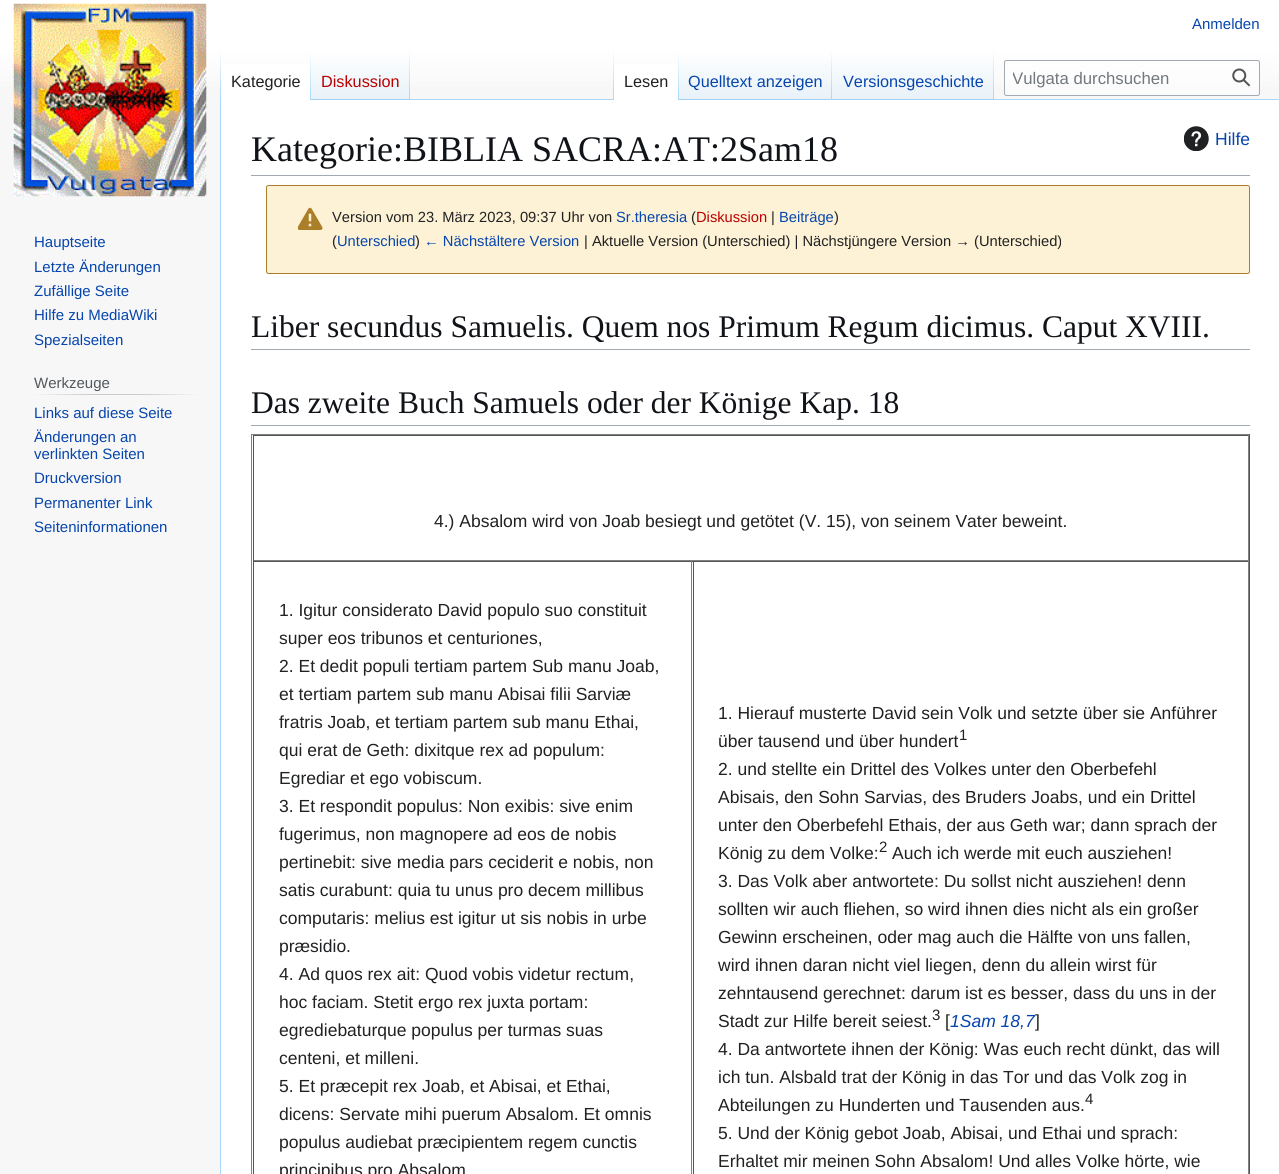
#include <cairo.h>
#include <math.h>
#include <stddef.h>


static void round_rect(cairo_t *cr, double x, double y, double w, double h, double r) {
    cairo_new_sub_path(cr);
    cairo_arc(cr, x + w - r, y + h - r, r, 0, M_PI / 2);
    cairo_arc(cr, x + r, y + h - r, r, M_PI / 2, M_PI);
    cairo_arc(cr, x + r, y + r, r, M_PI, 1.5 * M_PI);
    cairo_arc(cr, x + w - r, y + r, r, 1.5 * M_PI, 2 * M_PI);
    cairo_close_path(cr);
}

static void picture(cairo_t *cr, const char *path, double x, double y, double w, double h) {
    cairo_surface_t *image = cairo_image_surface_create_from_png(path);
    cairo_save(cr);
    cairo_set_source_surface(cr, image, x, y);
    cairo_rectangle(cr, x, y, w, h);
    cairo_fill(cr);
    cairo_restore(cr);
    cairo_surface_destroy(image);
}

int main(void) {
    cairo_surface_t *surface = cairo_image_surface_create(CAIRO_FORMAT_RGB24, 1279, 1174);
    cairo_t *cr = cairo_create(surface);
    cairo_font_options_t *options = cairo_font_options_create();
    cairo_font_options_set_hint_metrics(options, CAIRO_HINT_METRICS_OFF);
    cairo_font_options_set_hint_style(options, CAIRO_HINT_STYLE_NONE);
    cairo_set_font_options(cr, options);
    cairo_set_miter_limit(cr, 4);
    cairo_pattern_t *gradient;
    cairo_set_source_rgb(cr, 0.965, 0.965, 0.965);
    cairo_paint(cr);
    gradient = cairo_pattern_create_linear(640, 0, 640, 100);
    cairo_pattern_add_color_stop_rgba(gradient, 0.5, 1, 1, 1, 1);
    cairo_pattern_add_color_stop_rgba(gradient, 1, 0.965, 0.965, 0.965, 1);
    cairo_set_source(cr, gradient);
    cairo_pattern_destroy(gradient);
    cairo_rectangle(cr, 0, 0, 1279, 86);
    cairo_fill(cr);
    cairo_select_font_face(cr, "Liberation Sans", CAIRO_FONT_SLANT_NORMAL, CAIRO_FONT_WEIGHT_NORMAL);
    cairo_set_font_size(cr, 15);
    cairo_set_source_rgb(cr, 0.024, 0.271, 0.678);
    cairo_move_to(cr, 1192, 29);
    cairo_show_text(cr, "Anmelden");
    cairo_set_source_rgb(cr, 0.655, 0.843, 0.976);
    cairo_rectangle(cr, 220, 99, 1, 1075);
    cairo_fill(cr);
    gradient = cairo_pattern_create_linear(221, 50, 221, 100);
    cairo_pattern_add_color_stop_rgba(gradient, 0, 0.655, 0.843, 0.976, 0);
    cairo_pattern_add_color_stop_rgba(gradient, 1, 0.655, 0.843, 0.976, 1);
    cairo_set_source(cr, gradient);
    cairo_pattern_destroy(gradient);
    cairo_rectangle(cr, 220, 50, 1, 50);
    cairo_fill(cr);
    cairo_set_source_rgb(cr, 1, 1, 1);
    cairo_rectangle(cr, 221, 64, 89, 36);
    cairo_fill(cr);
    gradient = cairo_pattern_create_linear(311, 50, 311, 100);
    cairo_pattern_add_color_stop_rgba(gradient, 0, 1, 1, 1, 1);
    cairo_pattern_add_color_stop_rgba(gradient, 1, 0.655, 0.843, 0.976, 1);
    cairo_set_source(cr, gradient);
    cairo_pattern_destroy(gradient);
    cairo_rectangle(cr, 310, 50, 1, 50);
    cairo_fill(cr);
    cairo_set_font_size(cr, 16.25);
    cairo_set_source_rgb(cr, 0.125, 0.129, 0.133);
    cairo_move_to(cr, 231, 87);
    cairo_show_text(cr, "Kategorie");
    gradient = cairo_pattern_create_linear(361, 100, 361, 50);
    cairo_pattern_add_color_stop_rgba(gradient, 0, 0.467, 0.757, 0.965, 1);
    cairo_pattern_add_color_stop_rgba(gradient, 0.03, 0.91, 0.949, 0.973, 1);
    cairo_pattern_add_color_stop_rgba(gradient, 1, 1, 1, 1, 1);
    cairo_set_source(cr, gradient);
    cairo_pattern_destroy(gradient);
    cairo_rectangle(cr, 311, 57, 99, 43);
    cairo_fill(cr);
    gradient = cairo_pattern_create_linear(409, 50, 409, 100);
    cairo_pattern_add_color_stop_rgba(gradient, 0, 0.655, 0.843, 0.976, 0);
    cairo_pattern_add_color_stop_rgba(gradient, 1, 0.655, 0.843, 0.976, 1);
    cairo_set_source(cr, gradient);
    cairo_pattern_destroy(gradient);
    cairo_rectangle(cr, 409, 50, 1, 50);
    cairo_fill(cr);
    cairo_set_source_rgb(cr, 0.729, 0, 0);
    cairo_move_to(cr, 321, 87);
    cairo_show_text(cr, "Diskussion");
    cairo_set_source_rgb(cr, 0.655, 0.843, 0.976);
    cairo_rectangle(cr, 410, 99, 869, 1);
    cairo_fill(cr);
    gradient = cairo_pattern_create_linear(613, 50, 613, 100);
    cairo_pattern_add_color_stop_rgba(gradient, 0, 0.655, 0.843, 0.976, 0);
    cairo_pattern_add_color_stop_rgba(gradient, 1, 0.655, 0.843, 0.976, 1);
    cairo_set_source(cr, gradient);
    cairo_pattern_destroy(gradient);
    cairo_rectangle(cr, 613, 50, 1, 50);
    cairo_fill(cr);
    cairo_set_source_rgb(cr, 1, 1, 1);
    cairo_rectangle(cr, 614, 64, 64, 36);
    cairo_fill(cr);
    gradient = cairo_pattern_create_linear(678, 50, 678, 100);
    cairo_pattern_add_color_stop_rgba(gradient, 0, 1, 1, 1, 1);
    cairo_pattern_add_color_stop_rgba(gradient, 1, 0.655, 0.843, 0.976, 1);
    cairo_set_source(cr, gradient);
    cairo_pattern_destroy(gradient);
    cairo_rectangle(cr, 678, 50, 1, 50);
    cairo_fill(cr);
    cairo_set_source_rgb(cr, 0.125, 0.129, 0.133);
    cairo_move_to(cr, 624, 87);
    cairo_show_text(cr, "Lesen");
    gradient = cairo_pattern_create_linear(756, 100, 756, 50);
    cairo_pattern_add_color_stop_rgba(gradient, 0, 0.467, 0.757, 0.965, 1);
    cairo_pattern_add_color_stop_rgba(gradient, 0.03, 0.91, 0.949, 0.973, 1);
    cairo_pattern_add_color_stop_rgba(gradient, 1, 1, 1, 1, 1);
    cairo_set_source(cr, gradient);
    cairo_pattern_destroy(gradient);
    cairo_rectangle(cr, 679, 57, 154, 43);
    cairo_fill(cr);
    gradient = cairo_pattern_create_linear(832, 50, 832, 100);
    cairo_pattern_add_color_stop_rgba(gradient, 0, 0.655, 0.843, 0.976, 0);
    cairo_pattern_add_color_stop_rgba(gradient, 1, 0.655, 0.843, 0.976, 1);
    cairo_set_source(cr, gradient);
    cairo_pattern_destroy(gradient);
    cairo_rectangle(cr, 831, 50, 1, 50);
    cairo_fill(cr);
    cairo_set_source_rgb(cr, 0.024, 0.271, 0.678);
    cairo_move_to(cr, 688, 87);
    cairo_show_text(cr, "Quelltext anzeigen");
    gradient = cairo_pattern_create_linear(913, 100, 913, 50);
    cairo_pattern_add_color_stop_rgba(gradient, 0, 0.467, 0.757, 0.965, 1);
    cairo_pattern_add_color_stop_rgba(gradient, 0.03, 0.91, 0.949, 0.973, 1);
    cairo_pattern_add_color_stop_rgba(gradient, 1, 1, 1, 1, 1);
    cairo_set_source(cr, gradient);
    cairo_pattern_destroy(gradient);
    cairo_rectangle(cr, 833, 57, 161, 43);
    cairo_fill(cr);
    gradient = cairo_pattern_create_linear(993, 50, 993, 100);
    cairo_pattern_add_color_stop_rgba(gradient, 0, 0.655, 0.843, 0.976, 0);
    cairo_pattern_add_color_stop_rgba(gradient, 1, 0.655, 0.843, 0.976, 1);
    cairo_set_source(cr, gradient);
    cairo_pattern_destroy(gradient);
    cairo_rectangle(cr, 993, 50, 1, 50);
    cairo_fill(cr);
    cairo_set_source_rgb(cr, 0.024, 0.271, 0.678);
    cairo_move_to(cr, 843, 87);
    cairo_show_text(cr, "Versionsgeschichte");
    cairo_set_source_rgba(cr, 1, 1, 1, 0.5);
    round_rect(cr, 1004.5, 60.5, 255, 35, 2);
    cairo_fill_preserve(cr);
    cairo_set_source_rgb(cr, 0.635, 0.663, 0.694);
    cairo_set_line_width(cr, 1);
    cairo_stroke(cr);
    cairo_save(cr);
    cairo_rectangle(cr, 1013, 69, 210, 19);
    cairo_clip(cr);
    cairo_set_font_size(cr, 16.75);
    cairo_set_source_rgb(cr, 0.447, 0.467, 0.49);
    cairo_move_to(cr, 1012, 84);
    cairo_show_text(cr, "Vulgata durchsuchen");
    cairo_restore(cr);
    picture(cr, "img1.png", 1232, 68, 19, 19);
    picture(cr, "img2.png", 13, 3, 194, 194);
    cairo_set_font_size(cr, 15);
    cairo_set_source_rgb(cr, 0.024, 0.271, 0.678);
    cairo_move_to(cr, 34, 247);
    cairo_show_text(cr, "Hauptseite");
    cairo_move_to(cr, 34, 272);
    cairo_show_text(cr, "Letzte Änderungen");
    cairo_move_to(cr, 34, 296);
    cairo_show_text(cr, "Zufällige Seite");
    cairo_move_to(cr, 34, 320);
    cairo_show_text(cr, "Hilfe zu MediaWiki");
    cairo_move_to(cr, 34, 345);
    cairo_show_text(cr, "Spezialseiten");
    gradient = cairo_pattern_create_linear(34, 394, 198, 394);
    cairo_pattern_add_color_stop_rgba(gradient, 0, 0.965, 0.965, 0.965, 1);
    cairo_pattern_add_color_stop_rgba(gradient, 0.33, 0.784, 0.8, 0.82, 1);
    cairo_pattern_add_color_stop_rgba(gradient, 0.66, 0.784, 0.8, 0.82, 1);
    cairo_pattern_add_color_stop_rgba(gradient, 1, 0.965, 0.965, 0.965, 1);
    cairo_set_source(cr, gradient);
    cairo_pattern_destroy(gradient);
    cairo_rectangle(cr, 34, 394, 164, 1);
    cairo_fill(cr);
    cairo_set_source_rgb(cr, 0.329, 0.349, 0.365);
    cairo_move_to(cr, 34, 388);
    cairo_show_text(cr, "Werkzeuge");
    cairo_set_source_rgb(cr, 0.024, 0.271, 0.678);
    cairo_move_to(cr, 34, 418);
    cairo_show_text(cr, "Links auf diese Seite");
    cairo_move_to(cr, 34, 442);
    cairo_show_text(cr, "Änderungen an");
    cairo_move_to(cr, 34, 459);
    cairo_show_text(cr, "verlinkten Seiten");
    cairo_move_to(cr, 34, 483);
    cairo_show_text(cr, "Druckversion");
    cairo_move_to(cr, 34, 508);
    cairo_show_text(cr, "Permanenter Link");
    cairo_move_to(cr, 34, 532);
    cairo_show_text(cr, "Seiteninformationen");
    cairo_set_source_rgb(cr, 1, 1, 1);
    cairo_rectangle(cr, 221, 100, 1058, 1074);
    cairo_fill(cr);
    cairo_set_source_rgb(cr, 0.635, 0.663, 0.694);
    cairo_rectangle(cr, 251, 175, 999, 1);
    cairo_fill(cr);
    cairo_select_font_face(cr, "Liberation Serif", CAIRO_FONT_SLANT_NORMAL, CAIRO_FONT_WEIGHT_NORMAL);
    cairo_set_font_size(cr, 36);
    cairo_set_source_rgb(cr, 0.063, 0.078, 0.094);
    cairo_move_to(cr, 251, 161);
    cairo_show_text(cr, "Kategorie:BIBLIA SACRA:AT:2Sam18");
    picture(cr, "img3.png", 1184, 126, 25, 25);
    cairo_select_font_face(cr, "Liberation Sans", CAIRO_FONT_SLANT_NORMAL, CAIRO_FONT_WEIGHT_NORMAL);
    cairo_set_font_size(cr, 17.5);
    cairo_set_source_rgb(cr, 0.024, 0.271, 0.678);
    cairo_move_to(cr, 1215, 145);
    cairo_show_text(cr, "Hilfe");
    cairo_set_source_rgb(cr, 0.992, 0.949, 0.835);
    round_rect(cr, 266.5, 185.5, 983, 88, 2);
    cairo_fill_preserve(cr);
    cairo_set_source_rgb(cr, 0.671, 0.498, 0.165);
    cairo_stroke(cr);
    picture(cr, "img4.png", 298, 207, 25, 23);
    cairo_set_font_size(cr, 14.7);
    cairo_set_source_rgb(cr, 0.125, 0.129, 0.133);
    cairo_move_to(cr, 332, 222);
    cairo_show_text(cr, "Version vom 23. März 2023, 09:37 Uhr von");
    cairo_set_source_rgb(cr, 0.024, 0.271, 0.678);
    cairo_move_to(cr, 616, 222);
    cairo_show_text(cr, "Sr.theresia");
    cairo_set_source_rgb(cr, 0.125, 0.129, 0.133);
    cairo_move_to(cr, 691, 222);
    cairo_show_text(cr, "(");
    cairo_set_source_rgb(cr, 0.729, 0, 0);
    cairo_move_to(cr, 696, 222);
    cairo_show_text(cr, "Diskussion");
    cairo_set_source_rgb(cr, 0.125, 0.129, 0.133);
    cairo_move_to(cr, 771, 222);
    cairo_show_text(cr, "|");
    cairo_set_source_rgb(cr, 0.024, 0.271, 0.678);
    cairo_move_to(cr, 779, 222);
    cairo_show_text(cr, "Beiträge");
    cairo_set_source_rgb(cr, 0.125, 0.129, 0.133);
    cairo_move_to(cr, 834, 222);
    cairo_show_text(cr, ")");
    cairo_move_to(cr, 332, 246);
    cairo_show_text(cr, "(");
    cairo_set_source_rgb(cr, 0.024, 0.271, 0.678);
    cairo_move_to(cr, 337, 246);
    cairo_show_text(cr, "Unterschied");
    cairo_set_source_rgb(cr, 0.125, 0.129, 0.133);
    cairo_move_to(cr, 415, 246);
    cairo_show_text(cr, ")");
    cairo_set_source_rgb(cr, 0.024, 0.271, 0.678);
    cairo_move_to(cr, 424, 246);
    cairo_show_text(cr, "← Nächstältere Version");
    cairo_set_source_rgb(cr, 0.125, 0.129, 0.133);
    cairo_move_to(cr, 584, 246);
    cairo_show_text(cr, "| Aktuelle Version (Unterschied) | Nächstjüngere Version → (Unterschied)");
    cairo_set_source_rgb(cr, 0.635, 0.663, 0.694);
    cairo_rectangle(cr, 251, 349, 999, 1);
    cairo_fill(cr);
    cairo_select_font_face(cr, "Liberation Serif", CAIRO_FONT_SLANT_NORMAL, CAIRO_FONT_WEIGHT_NORMAL);
    cairo_set_font_size(cr, 31.5);
    cairo_set_source_rgb(cr, 0.063, 0.078, 0.094);
    cairo_move_to(cr, 251, 337);
    cairo_show_text(cr, "Liber secundus Samuelis. Quem nos Primum Regum dicimus. Caput XVIII.");
    cairo_set_source_rgb(cr, 0.635, 0.663, 0.694);
    cairo_rectangle(cr, 251, 425, 999, 1);
    cairo_fill(cr);
    cairo_set_source_rgb(cr, 0.063, 0.078, 0.094);
    cairo_move_to(cr, 251, 413);
    cairo_show_text(cr, "Das zweite Buch Samuels oder der Könige Kap. 18");
    cairo_set_source_rgb(cr, 0.502, 0.502, 0.502);
    cairo_rectangle(cr, 251, 434, 999, 1);
    cairo_fill(cr);
    cairo_set_source_rgb(cr, 0.333, 0.333, 0.333);
    cairo_rectangle(cr, 1249, 434, 1, 740);
    cairo_fill(cr);
    cairo_set_source_rgb(cr, 0.502, 0.502, 0.502);
    cairo_rectangle(cr, 251, 434, 1, 740);
    cairo_fill(cr);
    cairo_set_source_rgb(cr, 0.333, 0.333, 0.333);
    cairo_rectangle(cr, 253, 435, 996, 1);
    cairo_fill(cr);
    cairo_set_source_rgb(cr, 0.502, 0.502, 0.502);
    cairo_rectangle(cr, 1248, 435, 1, 126);
    cairo_fill(cr);
    cairo_rectangle(cr, 253, 560, 996, 1);
    cairo_fill(cr);
    cairo_set_source_rgb(cr, 0.333, 0.333, 0.333);
    cairo_rectangle(cr, 253, 435, 1, 126);
    cairo_fill(cr);
    cairo_select_font_face(cr, "Liberation Sans", CAIRO_FONT_SLANT_NORMAL, CAIRO_FONT_WEIGHT_NORMAL);
    cairo_set_font_size(cr, 17.5);
    cairo_set_source_rgb(cr, 0.125, 0.129, 0.133);
    cairo_move_to(cr, 434, 527);
    cairo_show_text(cr, "4.) Absalom wird von Joab besiegt und getötet (V. 15), von seinem Vater beweint.");
    cairo_set_source_rgb(cr, 0.333, 0.333, 0.333);
    cairo_rectangle(cr, 253, 561, 996, 1);
    cairo_fill(cr);
    cairo_set_source_rgb(cr, 0.502, 0.502, 0.502);
    cairo_rectangle(cr, 691, 561, 1, 613);
    cairo_fill(cr);
    cairo_set_source_rgb(cr, 0.333, 0.333, 0.333);
    cairo_rectangle(cr, 253, 561, 1, 613);
    cairo_fill(cr);
    cairo_set_source_rgb(cr, 0.125, 0.129, 0.133);
    cairo_move_to(cr, 279, 616);
    cairo_show_text(cr, "1. Igitur considerato David populo suo constituit");
    cairo_move_to(cr, 279, 644);
    cairo_show_text(cr, "super eos tribunos et centuriones,");
    cairo_move_to(cr, 279, 672);
    cairo_show_text(cr, "2. Et dedit populi tertiam partem Sub manu Joab,");
    cairo_move_to(cr, 279, 700);
    cairo_show_text(cr, "et tertiam partem sub manu Abisai filii Sarviæ");
    cairo_move_to(cr, 279, 728);
    cairo_show_text(cr, "fratris Joab, et tertiam partem sub manu Ethai,");
    cairo_move_to(cr, 279, 756);
    cairo_show_text(cr, "qui erat de Geth: dixitque rex ad populum:");
    cairo_move_to(cr, 279, 784);
    cairo_show_text(cr, "Egrediar et ego vobiscum.");
    cairo_move_to(cr, 279, 812);
    cairo_show_text(cr, "3. Et respondit populus: Non exibis: sive enim");
    cairo_move_to(cr, 279, 840);
    cairo_show_text(cr, "fugerimus, non magnopere ad eos de nobis");
    cairo_move_to(cr, 279, 868);
    cairo_show_text(cr, "pertinebit: sive media pars ceciderit e nobis, non");
    cairo_move_to(cr, 279, 896);
    cairo_show_text(cr, "satis curabunt: quia tu unus pro decem millibus");
    cairo_move_to(cr, 279, 924);
    cairo_show_text(cr, "computaris: melius est igitur ut sis nobis in urbe");
    cairo_move_to(cr, 279, 952);
    cairo_show_text(cr, "præsidio.");
    cairo_move_to(cr, 279, 980);
    cairo_show_text(cr, "4. Ad quos rex ait: Quod vobis videtur rectum,");
    cairo_move_to(cr, 279, 1008);
    cairo_show_text(cr, "hoc faciam. Stetit ergo rex juxta portam:");
    cairo_move_to(cr, 279, 1036);
    cairo_show_text(cr, "egrediebaturque populus per turmas suas");
    cairo_move_to(cr, 279, 1064);
    cairo_show_text(cr, "centeni, et milleni.");
    cairo_move_to(cr, 279, 1092);
    cairo_show_text(cr, "5. Et præcepit rex Joab, et Abisai, et Ethai,");
    cairo_move_to(cr, 279, 1120);
    cairo_show_text(cr, "dicens: Servate mihi puerum Absalom. Et omnis");
    cairo_move_to(cr, 279, 1148);
    cairo_show_text(cr, "populus audiebat præcipientem regem cunctis");
    cairo_move_to(cr, 279, 1176);
    cairo_show_text(cr, "principibus pro Absalom");
    cairo_set_source_rgb(cr, 0.502, 0.502, 0.502);
    cairo_rectangle(cr, 1248, 561, 1, 613);
    cairo_fill(cr);
    cairo_set_source_rgb(cr, 0.333, 0.333, 0.333);
    cairo_rectangle(cr, 693, 561, 1, 613);
    cairo_fill(cr);
    cairo_set_source_rgb(cr, 0.125, 0.129, 0.133);
    cairo_move_to(cr, 718, 719);
    cairo_show_text(cr, "1. Hierauf musterte David sein Volk und setzte über sie Anführer");
    cairo_move_to(cr, 718, 747);
    cairo_show_text(cr, "über tausend und über hundert");
    cairo_set_font_size(cr, 15);
    cairo_move_to(cr, 959, 740);
    cairo_show_text(cr, "1");
    cairo_set_font_size(cr, 17.5);
    cairo_move_to(cr, 718, 775);
    cairo_show_text(cr, "2. und stellte ein Drittel des Volkes unter den Oberbefehl");
    cairo_move_to(cr, 718, 803);
    cairo_show_text(cr, "Abisais, den Sohn Sarvias, des Bruders Joabs, und ein Drittel");
    cairo_move_to(cr, 718, 831);
    cairo_show_text(cr, "unter den Oberbefehl Ethais, der aus Geth war; dann sprach der");
    cairo_move_to(cr, 718, 859);
    cairo_show_text(cr, "König zu dem Volke:");
    cairo_set_font_size(cr, 15);
    cairo_move_to(cr, 879, 852);
    cairo_show_text(cr, "2");
    cairo_set_font_size(cr, 17.5);
    cairo_move_to(cr, 892, 859);
    cairo_show_text(cr, "Auch ich werde mit euch ausziehen!");
    cairo_move_to(cr, 718, 887);
    cairo_show_text(cr, "3. Das Volk aber antwortete: Du sollst nicht ausziehen! denn");
    cairo_move_to(cr, 718, 915);
    cairo_show_text(cr, "sollten wir auch fliehen, so wird ihnen dies nicht als ein großer");
    cairo_move_to(cr, 718, 943);
    cairo_show_text(cr, "Gewinn erscheinen, oder mag auch die Hälfte von uns fallen,");
    cairo_move_to(cr, 718, 971);
    cairo_show_text(cr, "wird ihnen daran nicht viel liegen, denn du allein wirst für");
    cairo_move_to(cr, 718, 999);
    cairo_show_text(cr, "zehntausend gerechnet: darum ist es besser, dass du uns in der");
    cairo_move_to(cr, 718, 1027);
    cairo_show_text(cr, "Stadt zur Hilfe bereit seiest.");
    cairo_set_font_size(cr, 15);
    cairo_move_to(cr, 932, 1020);
    cairo_show_text(cr, "3");
    cairo_set_font_size(cr, 17.5);
    cairo_move_to(cr, 945, 1027);
    cairo_show_text(cr, "[");
    cairo_select_font_face(cr, "Liberation Sans", CAIRO_FONT_SLANT_ITALIC, CAIRO_FONT_WEIGHT_NORMAL);
    cairo_set_source_rgb(cr, 0.024, 0.271, 0.678);
    cairo_move_to(cr, 950, 1027);
    cairo_show_text(cr, "1Sam 18,7");
    cairo_select_font_face(cr, "Liberation Sans", CAIRO_FONT_SLANT_NORMAL, CAIRO_FONT_WEIGHT_NORMAL);
    cairo_set_source_rgb(cr, 0.125, 0.129, 0.133);
    cairo_move_to(cr, 1035, 1027);
    cairo_show_text(cr, "]");
    cairo_move_to(cr, 718, 1055);
    cairo_show_text(cr, "4. Da antwortete ihnen der König: Was euch recht dünkt, das will");
    cairo_move_to(cr, 718, 1083);
    cairo_show_text(cr, "ich tun. Alsbald trat der König in das Tor und das Volk zog in");
    cairo_move_to(cr, 718, 1111);
    cairo_show_text(cr, "Abteilungen zu Hunderten und Tausenden aus.");
    cairo_set_font_size(cr, 15);
    cairo_move_to(cr, 1085, 1104);
    cairo_show_text(cr, "4");
    cairo_set_font_size(cr, 17.5);
    cairo_move_to(cr, 718, 1139);
    cairo_show_text(cr, "5. Und der König gebot Joab, Abisai, und Ethai und sprach:");
    cairo_move_to(cr, 718, 1167);
    cairo_show_text(cr, "Erhaltet mir meinen Sohn Absalom! Und alles Volke hörte, wie");
    cairo_surface_write_to_png(surface, "page.png");
    cairo_font_options_destroy(options);
    cairo_destroy(cr);
    cairo_surface_destroy(surface);
    return 0;
}
